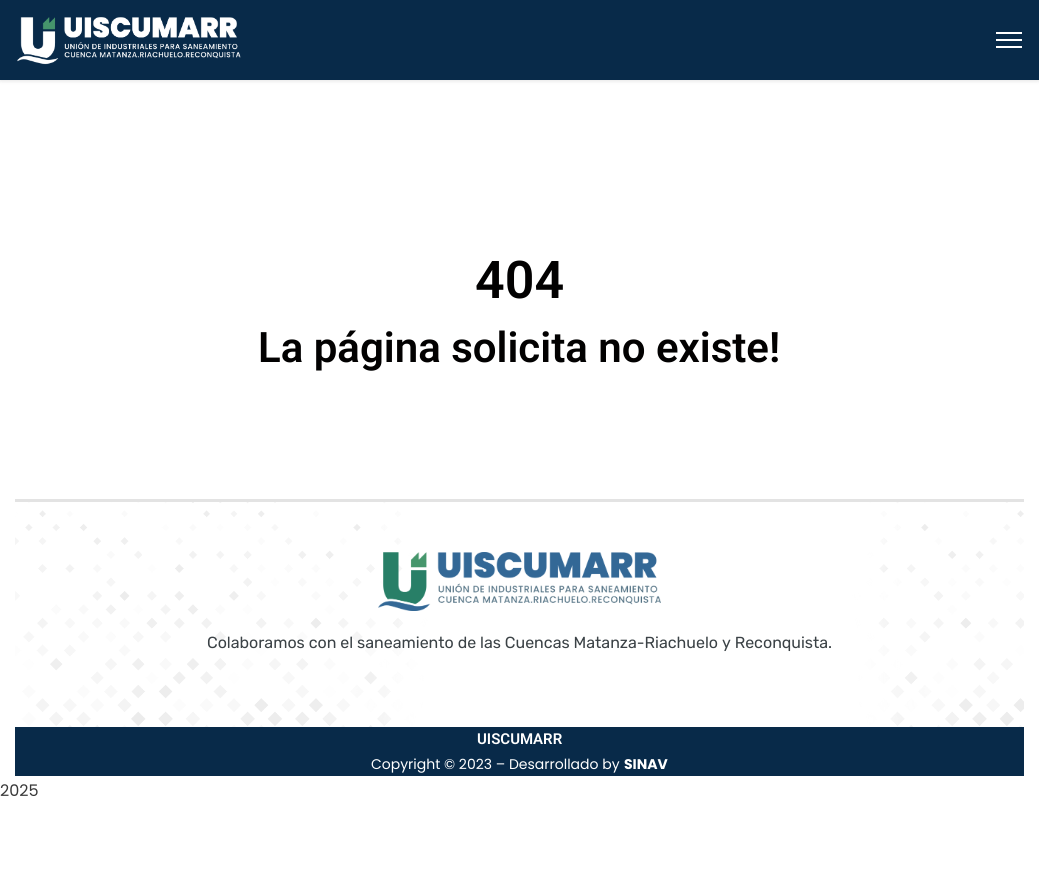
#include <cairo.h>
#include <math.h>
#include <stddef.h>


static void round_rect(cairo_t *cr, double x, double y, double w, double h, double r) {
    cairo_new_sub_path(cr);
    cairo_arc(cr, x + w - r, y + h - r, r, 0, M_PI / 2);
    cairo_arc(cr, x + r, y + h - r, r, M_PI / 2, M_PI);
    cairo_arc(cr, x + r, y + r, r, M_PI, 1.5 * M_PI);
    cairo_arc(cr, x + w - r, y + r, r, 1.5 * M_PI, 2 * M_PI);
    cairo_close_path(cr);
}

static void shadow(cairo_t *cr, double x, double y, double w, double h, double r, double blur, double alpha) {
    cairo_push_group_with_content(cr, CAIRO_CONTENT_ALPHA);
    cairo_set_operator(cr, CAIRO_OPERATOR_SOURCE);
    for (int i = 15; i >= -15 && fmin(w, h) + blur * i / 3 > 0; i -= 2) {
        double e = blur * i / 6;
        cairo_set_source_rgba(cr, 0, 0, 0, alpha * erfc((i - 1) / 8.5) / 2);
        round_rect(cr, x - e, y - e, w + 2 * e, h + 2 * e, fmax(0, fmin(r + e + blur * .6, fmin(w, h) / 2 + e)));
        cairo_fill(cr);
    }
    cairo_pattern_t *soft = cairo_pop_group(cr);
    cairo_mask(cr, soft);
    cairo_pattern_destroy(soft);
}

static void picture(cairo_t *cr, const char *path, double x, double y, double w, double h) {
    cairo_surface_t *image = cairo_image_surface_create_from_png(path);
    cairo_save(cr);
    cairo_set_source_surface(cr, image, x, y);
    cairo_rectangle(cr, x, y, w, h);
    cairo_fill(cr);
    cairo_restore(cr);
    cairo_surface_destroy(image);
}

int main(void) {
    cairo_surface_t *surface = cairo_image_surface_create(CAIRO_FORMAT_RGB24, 1039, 876);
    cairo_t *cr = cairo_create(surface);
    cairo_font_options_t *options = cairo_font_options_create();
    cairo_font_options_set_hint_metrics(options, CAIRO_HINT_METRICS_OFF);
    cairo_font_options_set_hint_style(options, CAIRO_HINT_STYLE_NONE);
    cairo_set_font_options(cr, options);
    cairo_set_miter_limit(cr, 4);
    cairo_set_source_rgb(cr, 1, 1, 1);
    cairo_paint(cr);
    cairo_set_source_rgb(cr, 0, 0, 0);
    shadow(cr, 0, 0, 1039, 80, 0, 2.5, 0.15);
    cairo_set_source_rgb(cr, 0.035, 0.165, 0.286);
    cairo_rectangle(cr, 0, 0, 1039, 80);
    cairo_fill(cr);
    picture(cr, "img1.png", 17, 17, 224, 48);
    cairo_set_source_rgb(cr, 1, 1, 1);
    cairo_rectangle(cr, 996, 32, 26, 2);
    cairo_fill(cr);
    cairo_rectangle(cr, 996, 39, 26, 2);
    cairo_fill(cr);
    cairo_rectangle(cr, 996, 46, 26, 2);
    cairo_fill(cr);
    cairo_select_font_face(cr, "Roboto SemiBold", CAIRO_FONT_SLANT_NORMAL, CAIRO_FONT_WEIGHT_NORMAL);
    cairo_set_font_size(cr, 52);
    cairo_set_source_rgb(cr, 0.008, 0.004, 0.004);
    cairo_move_to(cr, 475, 298);
    cairo_show_text(cr, "404");
    cairo_set_font_size(cr, 42);
    cairo_move_to(cr, 258, 362);
    cairo_show_text(cr, "La página solicita no existe!");
    cairo_set_source_rgb(cr, 0.89, 0.89, 0.89);
    cairo_rectangle(cr, 15, 499, 1009, 3);
    cairo_fill(cr);
    picture(cr, "img2.png", 15, 502, 1009, 225);
    picture(cr, "img3.png", 378, 552, 283, 59);
    cairo_select_font_face(cr, "Rubik", CAIRO_FONT_SLANT_NORMAL, CAIRO_FONT_WEIGHT_NORMAL);
    cairo_set_font_size(cr, 16);
    cairo_set_source_rgb(cr, 0.231, 0.259, 0.275);
    cairo_move_to(cr, 207, 648);
    cairo_show_text(cr, "Colaboramos con el saneamiento de las Cuencas Matanza-Riachuelo y Reconquista.");
    cairo_set_source_rgb(cr, 0.035, 0.165, 0.286);
    cairo_rectangle(cr, 15, 727, 1009, 49);
    cairo_fill(cr);
    cairo_select_font_face(cr, "Roboto SemiBold", CAIRO_FONT_SLANT_NORMAL, CAIRO_FONT_WEIGHT_NORMAL);
    cairo_set_font_size(cr, 15);
    cairo_set_source_rgb(cr, 1, 1, 1);
    cairo_move_to(cr, 477, 744);
    cairo_show_text(cr, "UISCUMARR");
    cairo_select_font_face(cr, "Poppins", CAIRO_FONT_SLANT_NORMAL, CAIRO_FONT_WEIGHT_NORMAL);
    cairo_set_font_size(cr, 14);
    cairo_move_to(cr, 371, 769);
    cairo_show_text(cr, "Copyright © 2023 – Desarrollado by");
    cairo_select_font_face(cr, "Poppins", CAIRO_FONT_SLANT_NORMAL, CAIRO_FONT_WEIGHT_BOLD);
    cairo_move_to(cr, 624, 769);
    cairo_show_text(cr, "SINAV");
    cairo_select_font_face(cr, "Poppins", CAIRO_FONT_SLANT_NORMAL, CAIRO_FONT_WEIGHT_NORMAL);
    cairo_set_font_size(cr, 16);
    cairo_set_source_rgb(cr, 0.22, 0.22, 0.22);
    cairo_move_to(cr, 0, 796);
    cairo_show_text(cr, "2025");
    cairo_surface_write_to_png(surface, "page.png");
    cairo_font_options_destroy(options);
    cairo_destroy(cr);
    cairo_surface_destroy(surface);
    return 0;
}
